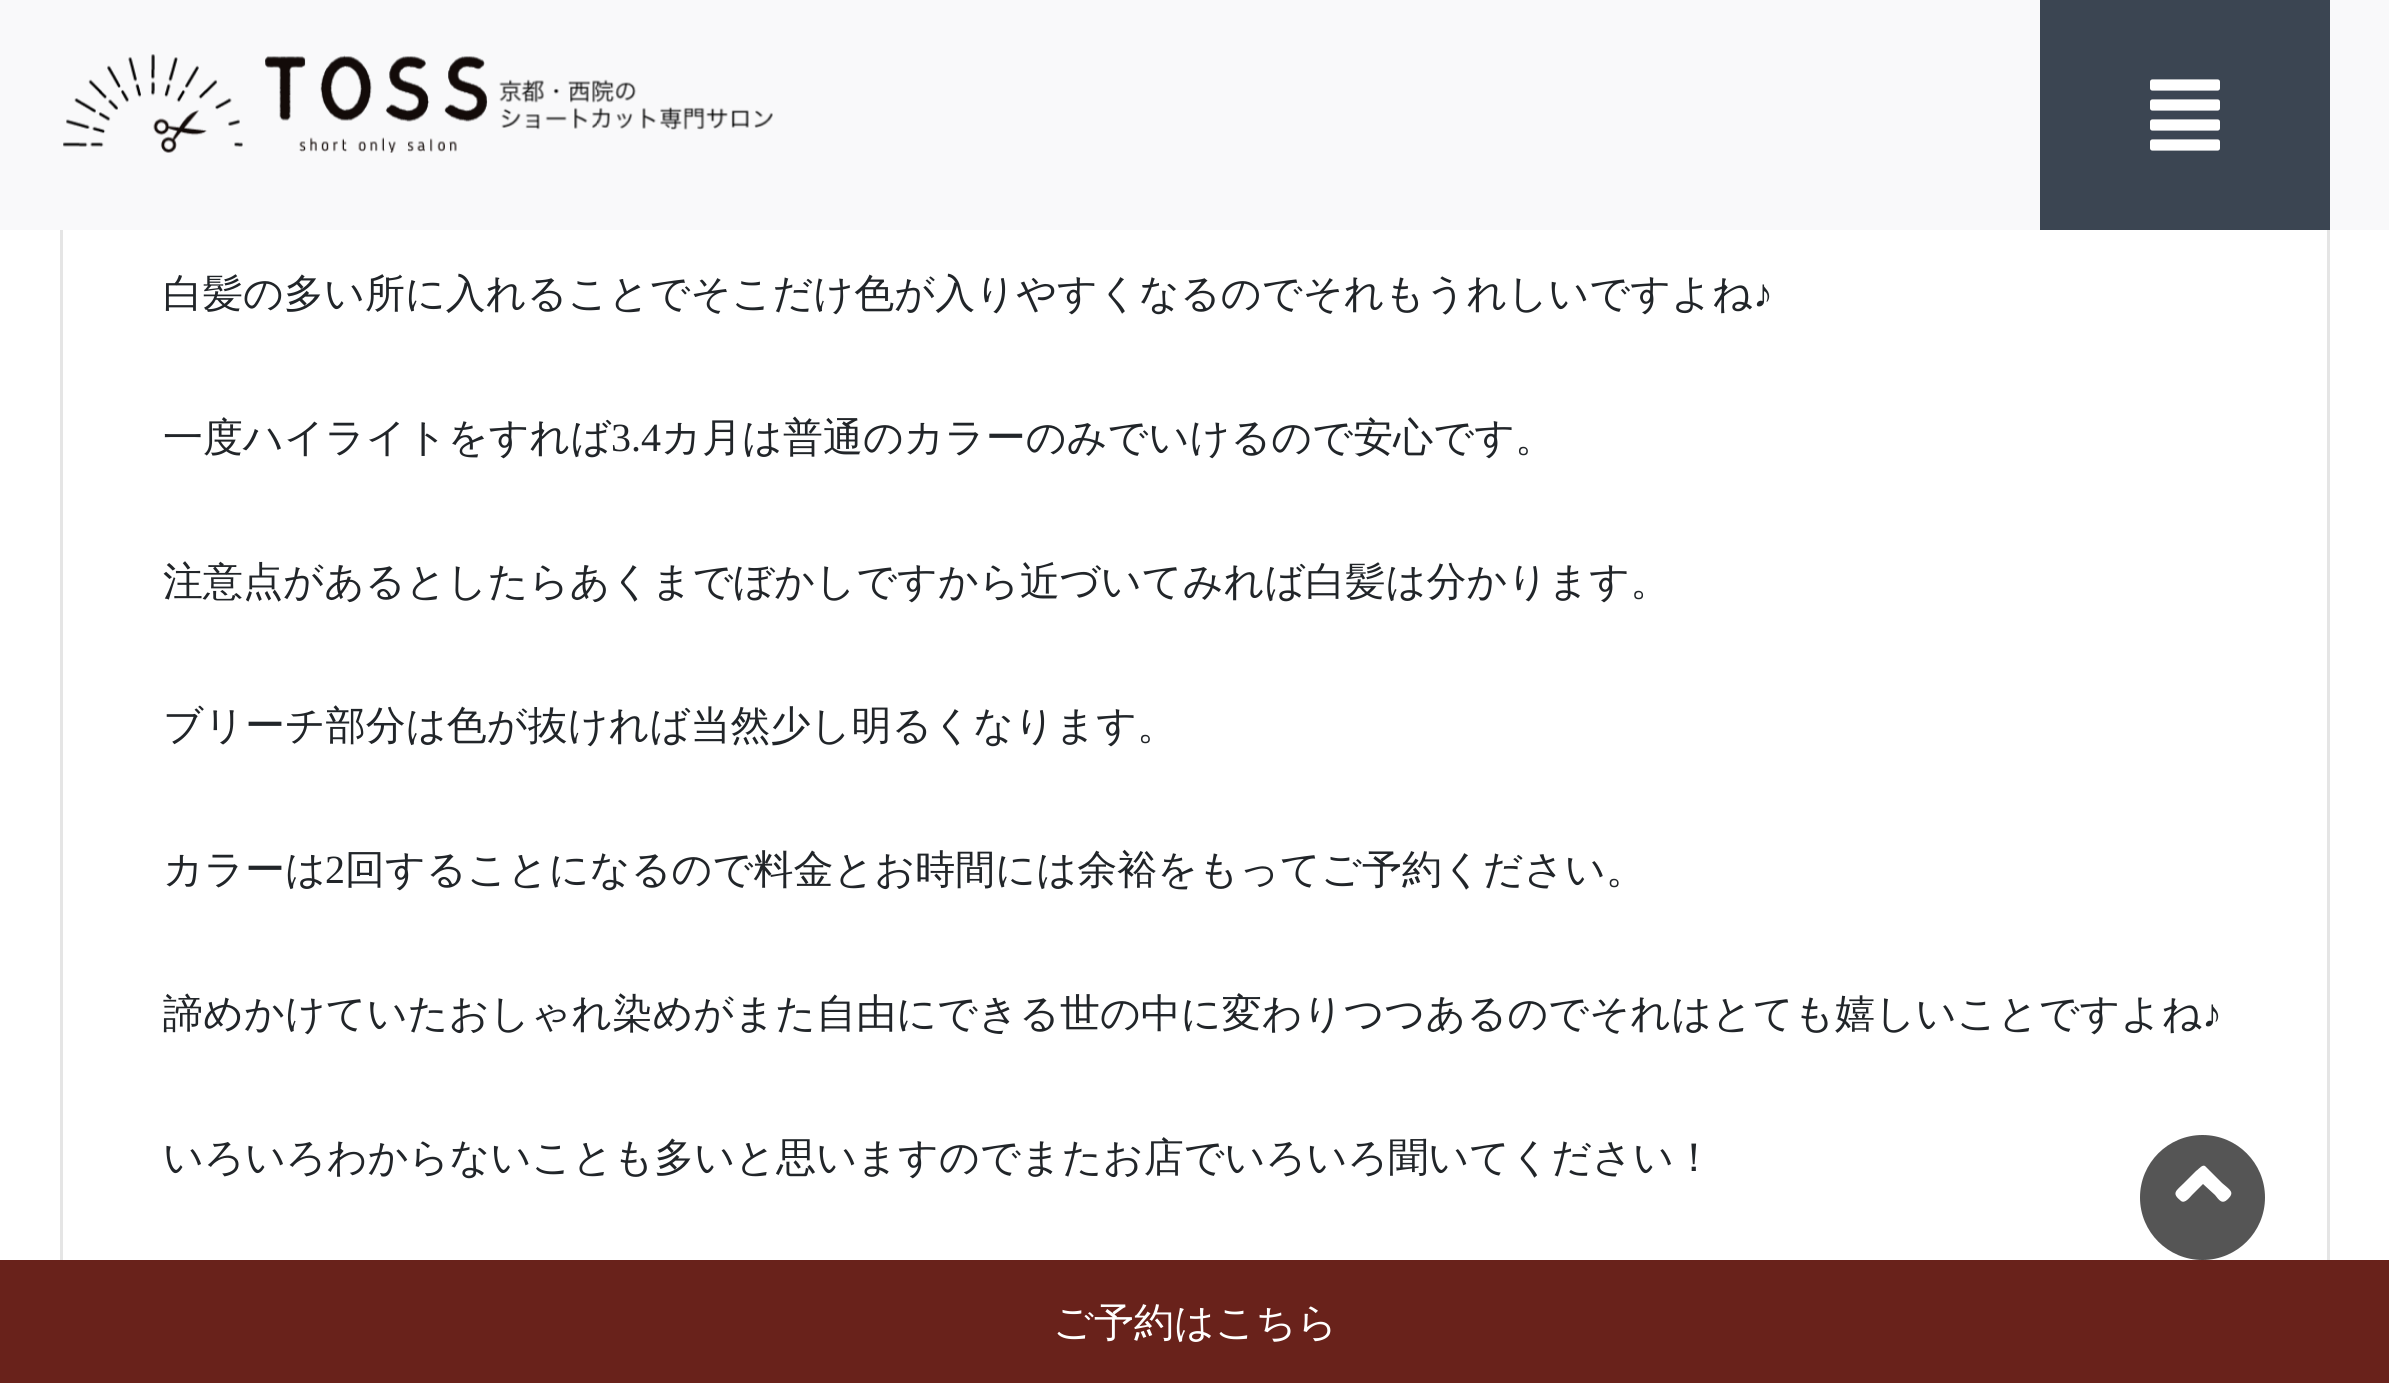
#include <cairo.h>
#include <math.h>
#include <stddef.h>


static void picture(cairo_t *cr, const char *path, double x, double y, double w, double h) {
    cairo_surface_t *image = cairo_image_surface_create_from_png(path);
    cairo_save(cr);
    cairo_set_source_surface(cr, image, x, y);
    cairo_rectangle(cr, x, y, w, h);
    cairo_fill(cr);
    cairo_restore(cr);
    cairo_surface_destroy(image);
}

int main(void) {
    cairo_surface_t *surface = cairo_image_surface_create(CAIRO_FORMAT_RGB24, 2389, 1383);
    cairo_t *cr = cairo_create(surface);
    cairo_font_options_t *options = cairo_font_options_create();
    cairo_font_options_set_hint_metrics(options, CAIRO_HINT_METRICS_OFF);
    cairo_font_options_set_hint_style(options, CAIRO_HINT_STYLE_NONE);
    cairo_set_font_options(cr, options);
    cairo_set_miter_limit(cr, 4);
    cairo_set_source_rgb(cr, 1, 1, 1);
    cairo_paint(cr);
    cairo_rectangle(cr, 61.5, -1.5, 2267, 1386);
    cairo_set_source_rgb(cr, 0.898, 0.898, 0.898);
    cairo_set_line_width(cr, 3);
    cairo_stroke(cr);
    cairo_set_source_rgb(cr, 0.973, 0.976, 0.98);
    cairo_rectangle(cr, 0, 0, 2389, 230);
    cairo_fill(cr);
    picture(cr, "img1.png", 63, 54, 710, 99);
    cairo_set_source_rgb(cr, 0.231, 0.271, 0.322);
    cairo_rectangle(cr, 2040, 0, 290, 230);
    cairo_fill(cr);
    picture(cr, "img2.png", 2150, 79, 70, 72);
    cairo_select_font_face(cr, "WenQuanYi Zen Hei Medium", CAIRO_FONT_SLANT_NORMAL, CAIRO_FONT_WEIGHT_NORMAL);
    cairo_set_font_size(cr, 40);
    cairo_set_source_rgb(cr, 0.129, 0.145, 0.161);
    cairo_move_to(cr, 163, 307);
    cairo_show_text(cr, "白髪の多い所に入れることでそこだけ色が入りやすくなるのでそれもうれしいですよね");
    cairo_select_font_face(cr, "Liberation Serif", CAIRO_FONT_SLANT_NORMAL, CAIRO_FONT_WEIGHT_NORMAL);
    cairo_move_to(cr, 1753, 307);
    cairo_show_text(cr, "♪");
    cairo_select_font_face(cr, "WenQuanYi Zen Hei Medium", CAIRO_FONT_SLANT_NORMAL, CAIRO_FONT_WEIGHT_NORMAL);
    cairo_move_to(cr, 163, 451);
    cairo_show_text(cr, "一度ハイライトをすれば");
    cairo_select_font_face(cr, "Liberation Serif", CAIRO_FONT_SLANT_NORMAL, CAIRO_FONT_WEIGHT_NORMAL);
    cairo_move_to(cr, 611, 451);
    cairo_show_text(cr, "3.4");
    cairo_select_font_face(cr, "WenQuanYi Zen Hei Medium", CAIRO_FONT_SLANT_NORMAL, CAIRO_FONT_WEIGHT_NORMAL);
    cairo_move_to(cr, 661, 451);
    cairo_show_text(cr, "カ月は普通のカラーのみでいけるので安心です。");
    cairo_move_to(cr, 163, 595);
    cairo_show_text(cr, "注意点があるとしたらあくまでぼかしですから近づいてみれば白髪は分かります。");
    cairo_move_to(cr, 163, 739);
    cairo_show_text(cr, "ブリーチ部分は色が抜ければ当然少し明るくなります。");
    cairo_move_to(cr, 163, 883);
    cairo_show_text(cr, "カラーは");
    cairo_select_font_face(cr, "Liberation Serif", CAIRO_FONT_SLANT_NORMAL, CAIRO_FONT_WEIGHT_NORMAL);
    cairo_move_to(cr, 325, 883);
    cairo_show_text(cr, "2");
    cairo_select_font_face(cr, "WenQuanYi Zen Hei Medium", CAIRO_FONT_SLANT_NORMAL, CAIRO_FONT_WEIGHT_NORMAL);
    cairo_move_to(cr, 345, 883);
    cairo_show_text(cr, "回することになるので料金とお時間には余裕をもってご予約ください。");
    cairo_move_to(cr, 163, 1027);
    cairo_show_text(cr, "諦めかけていたおしゃれ染めがまた自由にできる世の中に変わりつつあるのでそれはとても嬉しいことですよね");
    cairo_select_font_face(cr, "Liberation Serif", CAIRO_FONT_SLANT_NORMAL, CAIRO_FONT_WEIGHT_NORMAL);
    cairo_move_to(cr, 2202, 1027);
    cairo_show_text(cr, "♪");
    cairo_select_font_face(cr, "WenQuanYi Zen Hei Medium", CAIRO_FONT_SLANT_NORMAL, CAIRO_FONT_WEIGHT_NORMAL);
    cairo_move_to(cr, 163, 1171);
    cairo_show_text(cr, "いろいろわからないことも多いと思いますのでまたお店でいろいろ聞いてください！");
    cairo_set_source_rgb(cr, 0.333, 0.333, 0.333);
    cairo_new_path(cr);
    cairo_arc(cr, 2202.5, 1197.5, 62.5, 0, 2 * M_PI);
    cairo_fill(cr);
    cairo_set_source_rgb(cr, 1, 1, 1);
    cairo_new_path(cr);
    cairo_move_to(cr, 2206, 1167);
    cairo_line_to(cr, 2222, 1183);
    cairo_curve_to(cr, 2230, 1190, 2235, 1192, 2228, 1199);
    cairo_curve_to(cr, 2222, 1205, 2219, 1200, 2215, 1195);
    cairo_line_to(cr, 2203, 1184);
    cairo_line_to(cr, 2192, 1195);
    cairo_curve_to(cr, 2190, 1197, 2185, 1204, 2181, 1201);
    cairo_curve_to(cr, 2171, 1193, 2176, 1191, 2184, 1183);
    cairo_line_to(cr, 2196, 1171);
    cairo_curve_to(cr, 2199, 1169, 2203, 1163, 2206, 1167);
    cairo_close_path(cr);
    cairo_fill(cr);
    cairo_set_source_rgb(cr, 0.412, 0.133, 0.106);
    cairo_rectangle(cr, 0, 1260, 2389, 123);
    cairo_fill(cr);
    cairo_set_source_rgb(cr, 1, 1, 1);
    cairo_move_to(cr, 1053, 1336);
    cairo_show_text(cr, "ご予約はこちら");
    cairo_surface_write_to_png(surface, "page.png");
    cairo_font_options_destroy(options);
    cairo_destroy(cr);
    cairo_surface_destroy(surface);
    return 0;
}
